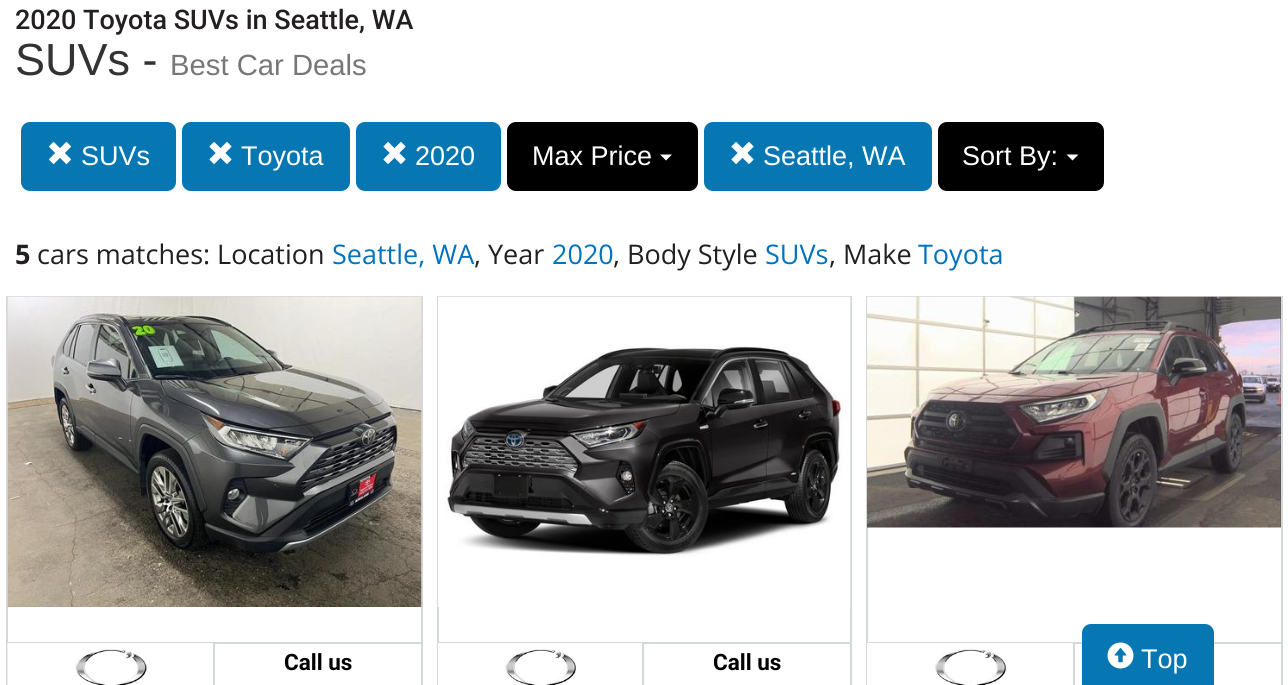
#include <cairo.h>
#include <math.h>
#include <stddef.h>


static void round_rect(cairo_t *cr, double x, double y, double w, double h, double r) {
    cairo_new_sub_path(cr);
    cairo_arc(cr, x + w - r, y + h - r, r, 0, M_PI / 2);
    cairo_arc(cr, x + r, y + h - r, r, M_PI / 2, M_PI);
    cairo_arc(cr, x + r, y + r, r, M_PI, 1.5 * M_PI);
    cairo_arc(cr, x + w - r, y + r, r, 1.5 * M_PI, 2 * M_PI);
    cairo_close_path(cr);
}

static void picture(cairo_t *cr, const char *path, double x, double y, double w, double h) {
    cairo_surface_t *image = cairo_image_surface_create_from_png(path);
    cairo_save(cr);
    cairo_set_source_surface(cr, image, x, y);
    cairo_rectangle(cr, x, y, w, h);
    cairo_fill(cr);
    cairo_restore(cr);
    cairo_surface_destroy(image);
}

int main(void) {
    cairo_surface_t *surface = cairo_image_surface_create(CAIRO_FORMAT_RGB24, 1288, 685);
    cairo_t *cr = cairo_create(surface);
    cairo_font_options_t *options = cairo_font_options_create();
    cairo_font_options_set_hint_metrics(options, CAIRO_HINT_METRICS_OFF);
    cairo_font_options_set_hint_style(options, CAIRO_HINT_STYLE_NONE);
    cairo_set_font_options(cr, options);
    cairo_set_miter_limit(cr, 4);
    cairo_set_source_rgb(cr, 1, 1, 1);
    cairo_paint(cr);
    cairo_select_font_face(cr, "Roboto Medium", CAIRO_FONT_SLANT_NORMAL, CAIRO_FONT_WEIGHT_NORMAL);
    cairo_set_font_size(cr, 27);
    cairo_set_source_rgb(cr, 0.137, 0.122, 0.125);
    cairo_move_to(cr, 15, 29);
    cairo_show_text(cr, "2020 Toyota SUVs in Seattle, WA");
    cairo_select_font_face(cr, "Liberation Sans", CAIRO_FONT_SLANT_NORMAL, CAIRO_FONT_WEIGHT_NORMAL);
    cairo_set_font_size(cr, 45);
    cairo_set_source_rgb(cr, 0.2, 0.2, 0.2);
    cairo_move_to(cr, 15, 75);
    cairo_show_text(cr, "SUVs -");
    cairo_set_font_size(cr, 29.25);
    cairo_set_source_rgb(cr, 0.467, 0.467, 0.467);
    cairo_move_to(cr, 170, 75);
    cairo_show_text(cr, "Best Car Deals");
    cairo_set_source_rgb(cr, 0.027, 0.467, 0.702);
    round_rect(cr, 21, 122, 155, 69, 9);
    cairo_fill(cr);
    picture(cr, "img1.png", 49, 142, 22, 22);
    cairo_set_font_size(cr, 27);
    cairo_set_source_rgb(cr, 1, 1, 1);
    cairo_move_to(cr, 81, 165);
    cairo_show_text(cr, "SUVs");
    cairo_set_source_rgb(cr, 0.027, 0.467, 0.702);
    round_rect(cr, 182, 122, 168, 69, 9);
    cairo_fill(cr);
    picture(cr, "img2.png", 209, 142, 23, 22);
    cairo_set_source_rgb(cr, 1, 1, 1);
    cairo_move_to(cr, 241, 165);
    cairo_show_text(cr, "Toyota");
    cairo_set_source_rgb(cr, 0.027, 0.467, 0.702);
    round_rect(cr, 356, 122, 145, 69, 9);
    cairo_fill(cr);
    picture(cr, "img2.png", 383, 142, 23, 22);
    cairo_set_source_rgb(cr, 1, 1, 1);
    cairo_move_to(cr, 415, 165);
    cairo_show_text(cr, "2020");
    cairo_set_source_rgb(cr, 0, 0, 0);
    round_rect(cr, 507, 122, 191, 69, 9);
    cairo_fill(cr);
    cairo_set_source_rgb(cr, 1, 1, 1);
    cairo_move_to(cr, 532, 165);
    cairo_show_text(cr, "Max Price");
    cairo_new_path(cr);
    cairo_move_to(cr, 660, 154.5);
    cairo_line_to(cr, 672, 154.5);
    cairo_line_to(cr, 666, 160.5);
    cairo_close_path(cr);
    cairo_fill(cr);
    cairo_set_source_rgb(cr, 0.027, 0.467, 0.702);
    round_rect(cr, 704, 122, 228, 69, 9);
    cairo_fill(cr);
    picture(cr, "img2.png", 731, 142, 23, 22);
    cairo_set_source_rgb(cr, 1, 1, 1);
    cairo_move_to(cr, 763, 165);
    cairo_show_text(cr, "Seattle, WA");
    cairo_set_source_rgb(cr, 0, 0, 0);
    round_rect(cr, 938, 122, 166, 69, 9);
    cairo_fill(cr);
    cairo_set_source_rgb(cr, 1, 1, 1);
    cairo_move_to(cr, 962, 165);
    cairo_show_text(cr, "Sort By:");
    cairo_new_path(cr);
    cairo_move_to(cr, 1066.5, 154.5);
    cairo_line_to(cr, 1078.5, 154.5);
    cairo_line_to(cr, 1072.5, 160.5);
    cairo_close_path(cr);
    cairo_fill(cr);
    cairo_select_font_face(cr, "Open Sans", CAIRO_FONT_SLANT_NORMAL, CAIRO_FONT_WEIGHT_BOLD);
    cairo_set_source_rgb(cr, 0.137, 0.122, 0.125);
    cairo_move_to(cr, 15, 264);
    cairo_show_text(cr, "5");
    cairo_select_font_face(cr, "Open Sans", CAIRO_FONT_SLANT_NORMAL, CAIRO_FONT_WEIGHT_NORMAL);
    cairo_move_to(cr, 37, 264);
    cairo_show_text(cr, "cars matches: Location");
    cairo_set_source_rgb(cr, 0, 0.451, 0.741);
    cairo_move_to(cr, 332, 264);
    cairo_show_text(cr, "Seattle, WA");
    cairo_set_source_rgb(cr, 0.137, 0.122, 0.125);
    cairo_move_to(cr, 474, 264);
    cairo_show_text(cr, ", Year");
    cairo_set_source_rgb(cr, 0, 0.451, 0.741);
    cairo_move_to(cr, 552, 264);
    cairo_show_text(cr, "2020");
    cairo_set_source_rgb(cr, 0.137, 0.122, 0.125);
    cairo_move_to(cr, 613, 264);
    cairo_show_text(cr, ", Body Style");
    cairo_set_source_rgb(cr, 0, 0.451, 0.741);
    cairo_move_to(cr, 765, 264);
    cairo_show_text(cr, "SUVs");
    cairo_set_source_rgb(cr, 0.137, 0.122, 0.125);
    cairo_move_to(cr, 829, 264);
    cairo_show_text(cr, ", Make");
    cairo_set_source_rgb(cr, 0, 0.451, 0.741);
    cairo_move_to(cr, 918, 264);
    cairo_show_text(cr, "Toyota");
    cairo_rectangle(cr, 7, 297, 415, 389);
    cairo_set_source_rgb(cr, 0.831, 0.847, 0.851);
    cairo_stroke(cr);
    picture(cr, "img3.png", 7, 296, 415, 311);
    cairo_rectangle(cr, 8, 642, 207, 1);
    cairo_fill(cr);
    cairo_rectangle(cr, 213, 642, 2, 43);
    cairo_fill(cr);
    picture(cr, "img4.png", 7, 643, 206, 42);
    cairo_rectangle(cr, 215, 642, 207, 2);
    cairo_fill(cr);
    cairo_select_font_face(cr, "Roboto", CAIRO_FONT_SLANT_NORMAL, CAIRO_FONT_WEIGHT_BOLD);
    cairo_set_font_size(cr, 22.5);
    cairo_set_source_rgb(cr, 0, 0, 0);
    cairo_move_to(cr, 284, 670);
    cairo_show_text(cr, "Call us");
    cairo_rectangle(cr, 438, 297, 413, 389);
    cairo_set_source_rgb(cr, 0.831, 0.847, 0.851);
    cairo_stroke(cr);
    picture(cr, "img5.png", 438, 296, 413, 311);
    cairo_rectangle(cr, 438, 642, 206, 1);
    cairo_fill(cr);
    cairo_rectangle(cr, 642, 642, 2, 43);
    cairo_fill(cr);
    picture(cr, "img6.png", 438, 643, 204, 42);
    cairo_rectangle(cr, 644, 642, 207, 2);
    cairo_fill(cr);
    cairo_set_source_rgb(cr, 0, 0, 0);
    cairo_move_to(cr, 713, 670);
    cairo_show_text(cr, "Call us");
    cairo_rectangle(cr, 867, 297, 415, 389);
    cairo_set_source_rgb(cr, 0.831, 0.847, 0.851);
    cairo_stroke(cr);
    picture(cr, "img7.png", 867, 296, 414, 232);
    cairo_rectangle(cr, 867, 642, 207, 2);
    cairo_fill(cr);
    cairo_rectangle(cr, 1073, 642, 2, 43);
    cairo_fill(cr);
    picture(cr, "img8.png", 867, 643, 206, 42);
    cairo_rectangle(cr, 1074, 642, 207, 2);
    cairo_fill(cr);
    cairo_set_source_rgb(cr, 0.027, 0.467, 0.702);
    round_rect(cr, 1083, 625, 130, 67, 8);
    cairo_fill_preserve(cr);
    cairo_stroke(cr);
    picture(cr, "img9.png", 1107, 642, 27, 27);
    cairo_select_font_face(cr, "Liberation Sans", CAIRO_FONT_SLANT_NORMAL, CAIRO_FONT_WEIGHT_NORMAL);
    cairo_set_font_size(cr, 27);
    cairo_set_source_rgb(cr, 1, 1, 1);
    cairo_move_to(cr, 1141, 668);
    cairo_show_text(cr, "Top");
    cairo_surface_write_to_png(surface, "page.png");
    cairo_font_options_destroy(options);
    cairo_destroy(cr);
    cairo_surface_destroy(surface);
    return 0;
}
